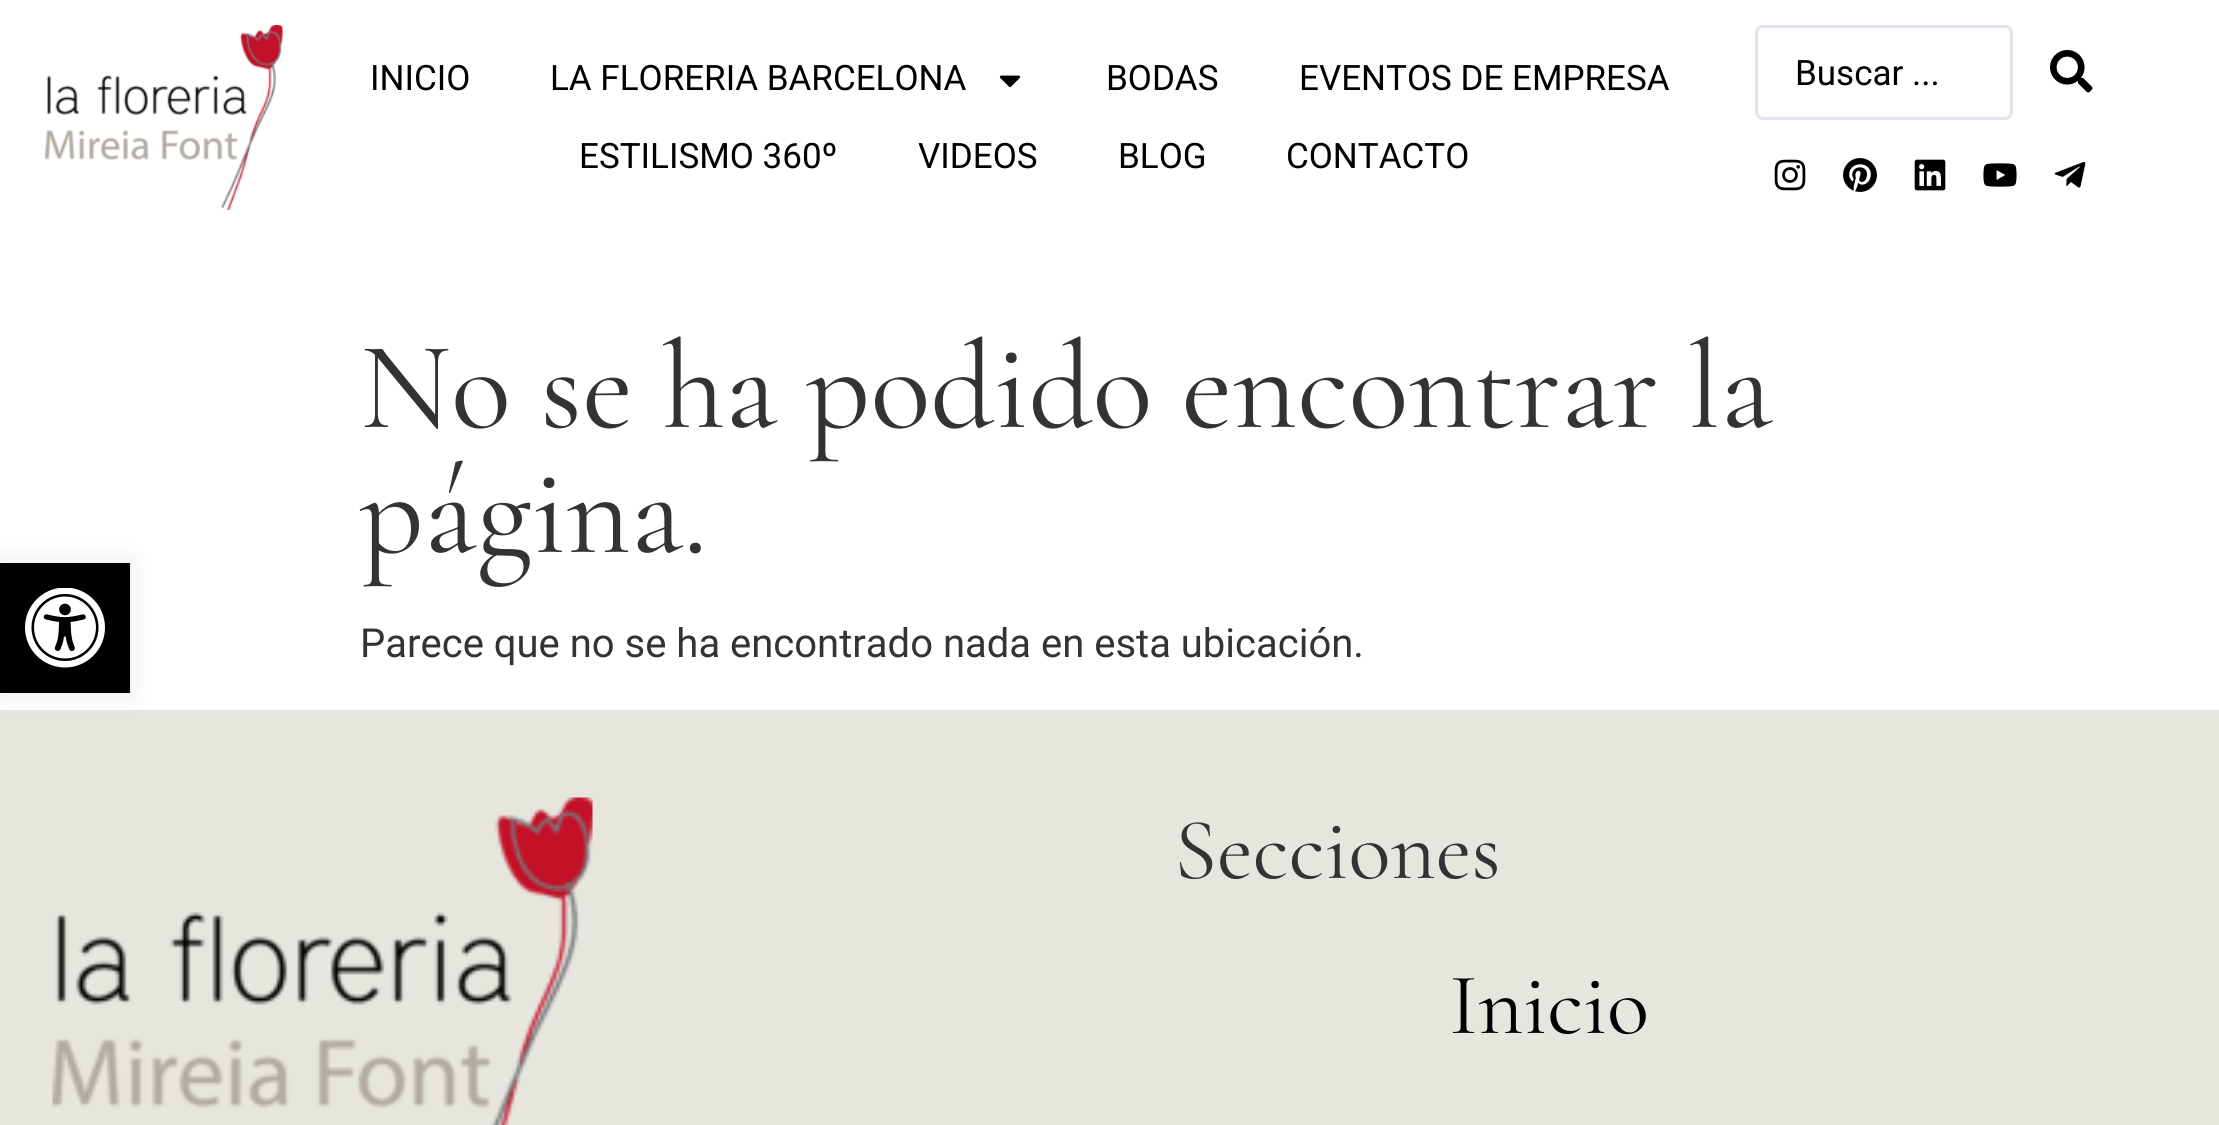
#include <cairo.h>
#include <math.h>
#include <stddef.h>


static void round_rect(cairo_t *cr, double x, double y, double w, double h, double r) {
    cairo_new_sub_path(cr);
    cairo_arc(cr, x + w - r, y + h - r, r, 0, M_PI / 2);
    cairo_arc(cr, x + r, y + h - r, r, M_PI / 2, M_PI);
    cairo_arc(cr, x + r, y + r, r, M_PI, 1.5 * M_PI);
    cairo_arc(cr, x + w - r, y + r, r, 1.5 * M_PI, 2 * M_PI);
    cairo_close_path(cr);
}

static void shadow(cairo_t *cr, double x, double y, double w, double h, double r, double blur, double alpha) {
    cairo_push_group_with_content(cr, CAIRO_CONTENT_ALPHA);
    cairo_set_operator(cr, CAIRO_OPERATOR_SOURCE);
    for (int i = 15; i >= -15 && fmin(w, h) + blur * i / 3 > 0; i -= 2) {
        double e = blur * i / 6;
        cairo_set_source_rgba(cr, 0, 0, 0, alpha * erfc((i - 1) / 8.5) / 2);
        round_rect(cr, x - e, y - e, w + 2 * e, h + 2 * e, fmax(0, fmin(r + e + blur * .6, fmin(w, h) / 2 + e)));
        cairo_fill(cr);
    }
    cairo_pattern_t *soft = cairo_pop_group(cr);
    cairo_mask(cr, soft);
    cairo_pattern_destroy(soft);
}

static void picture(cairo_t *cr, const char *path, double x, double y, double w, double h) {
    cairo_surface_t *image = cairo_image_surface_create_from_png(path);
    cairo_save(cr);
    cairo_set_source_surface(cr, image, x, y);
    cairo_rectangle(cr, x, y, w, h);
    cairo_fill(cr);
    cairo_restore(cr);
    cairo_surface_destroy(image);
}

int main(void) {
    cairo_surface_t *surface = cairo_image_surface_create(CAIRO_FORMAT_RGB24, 2219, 1125);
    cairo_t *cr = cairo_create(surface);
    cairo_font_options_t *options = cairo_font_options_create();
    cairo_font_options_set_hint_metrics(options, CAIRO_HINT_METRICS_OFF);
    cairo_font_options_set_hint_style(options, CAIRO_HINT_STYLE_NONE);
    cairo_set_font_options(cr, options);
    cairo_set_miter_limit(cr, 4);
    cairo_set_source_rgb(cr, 1, 1, 1);
    cairo_paint(cr);
    picture(cr, "img1.png", 45, 25, 238, 185);
    cairo_select_font_face(cr, "Roboto", CAIRO_FONT_SLANT_NORMAL, CAIRO_FONT_WEIGHT_NORMAL);
    cairo_set_font_size(cr, 35);
    cairo_set_source_rgb(cr, 0, 0, 0);
    cairo_move_to(cr, 370, 90);
    cairo_show_text(cr, "INICIO");
    cairo_move_to(cr, 550, 90);
    cairo_show_text(cr, "LA FLORERIA BARCELONA");
    picture(cr, "img2.png", 999, 75, 22, 13);
    cairo_move_to(cr, 1106, 90);
    cairo_show_text(cr, "BODAS");
    cairo_move_to(cr, 1299, 90);
    cairo_show_text(cr, "EVENTOS DE EMPRESA");
    cairo_move_to(cr, 579, 168);
    cairo_show_text(cr, "ESTILISMO 360º");
    cairo_move_to(cr, 918, 168);
    cairo_show_text(cr, "VIDEOS");
    cairo_move_to(cr, 1118, 168);
    cairo_show_text(cr, "BLOG");
    cairo_move_to(cr, 1286, 168);
    cairo_show_text(cr, "CONTACTO");
    round_rect(cr, 1756.5, 26.5, 255, 92, 6.5);
    cairo_set_source_rgb(cr, 0.882, 0.898, 0.922);
    cairo_set_line_width(cr, 3);
    cairo_stroke(cr);
    cairo_set_source_rgb(cr, 0, 0, 0);
    cairo_move_to(cr, 1795, 85);
    cairo_show_text(cr, "Buscar ...");
    picture(cr, "img3.png", 2050, 50, 43, 43);
    picture(cr, "img4.png", 1774, 159, 32, 32);
    picture(cr, "img5.png", 1843, 158, 34, 34);
    picture(cr, "img6.png", 1914, 159, 32, 32);
    picture(cr, "img7.png", 1983, 163, 34, 24);
    picture(cr, "img8.png", 2054, 162, 32, 26);
    cairo_set_source_rgb(cr, 0.902, 0.902, 0.875);
    cairo_rectangle(cr, 0, 710, 2219, 415);
    cairo_fill(cr);
    cairo_set_source_rgb(cr, 0, 0, 0);
    shadow(cr, 0, 563, 130, 130, 0, 12.5, 0.1);
    cairo_set_source_rgb(cr, 0, 0, 0);
    cairo_rectangle(cr, 0, 563, 130, 130);
    cairo_fill(cr);
    picture(cr, "img9.png", 25, 588, 80, 80);
    cairo_select_font_face(cr, "Cormorant Garamond", CAIRO_FONT_SLANT_NORMAL, CAIRO_FONT_WEIGHT_NORMAL);
    cairo_set_font_size(cr, 125);
    cairo_set_source_rgb(cr, 0.2, 0.2, 0.2);
    cairo_move_to(cr, 360, 427);
    cairo_show_text(cr, "No se ha podido encontrar la");
    cairo_move_to(cr, 360, 552);
    cairo_show_text(cr, "página.");
    cairo_select_font_face(cr, "Roboto", CAIRO_FONT_SLANT_NORMAL, CAIRO_FONT_WEIGHT_NORMAL);
    cairo_set_font_size(cr, 40);
    cairo_move_to(cr, 360, 657);
    cairo_show_text(cr, "Parece que no se ha encontrado nada en esta ubicación.");
    picture(cr, "img10.png", 52, 797, 541, 328);
    cairo_select_font_face(cr, "Cormorant Garamond", CAIRO_FONT_SLANT_NORMAL, CAIRO_FONT_WEIGHT_NORMAL);
    cairo_set_font_size(cr, 87.5);
    cairo_move_to(cr, 1174, 878);
    cairo_show_text(cr, "Secciones");
    cairo_set_source_rgb(cr, 0, 0, 0);
    cairo_move_to(cr, 1449, 1033);
    cairo_show_text(cr, "Inicio");
    cairo_surface_write_to_png(surface, "page.png");
    cairo_font_options_destroy(options);
    cairo_destroy(cr);
    cairo_surface_destroy(surface);
    return 0;
}
